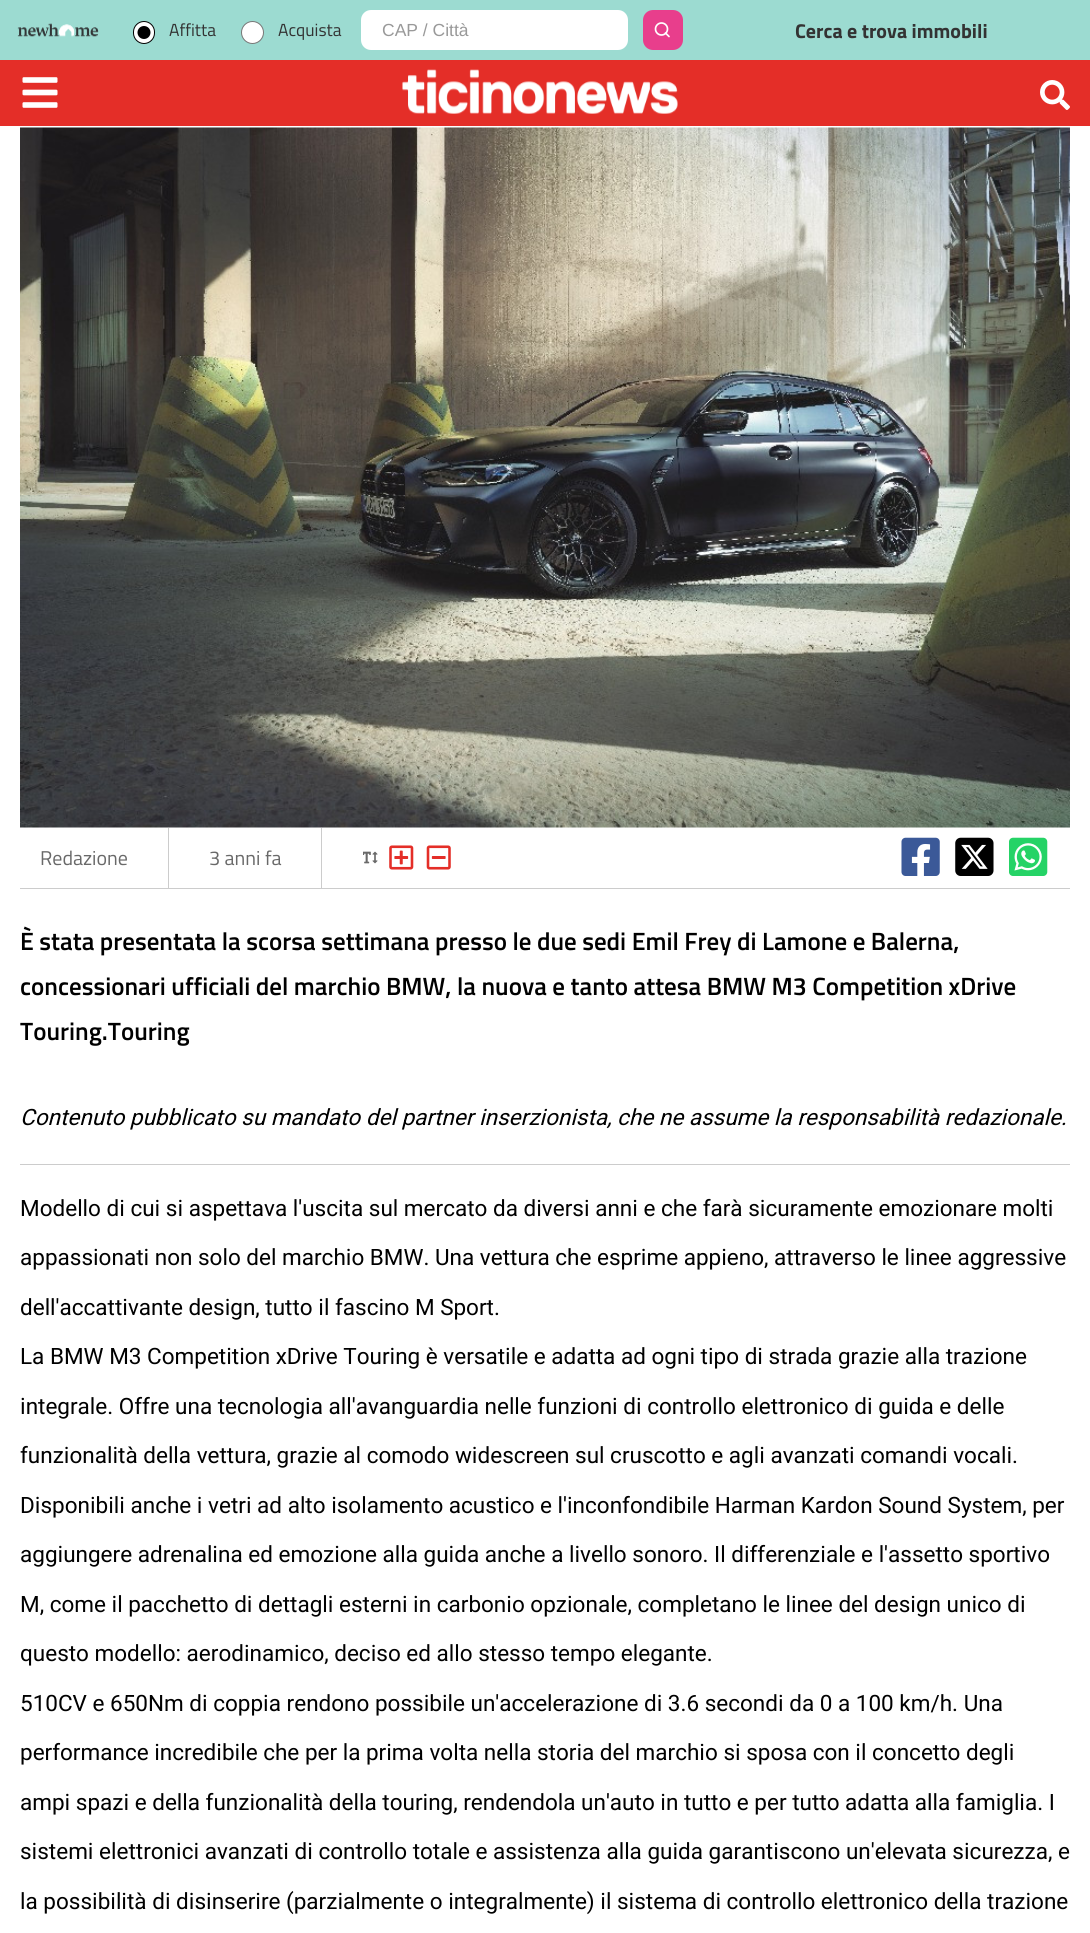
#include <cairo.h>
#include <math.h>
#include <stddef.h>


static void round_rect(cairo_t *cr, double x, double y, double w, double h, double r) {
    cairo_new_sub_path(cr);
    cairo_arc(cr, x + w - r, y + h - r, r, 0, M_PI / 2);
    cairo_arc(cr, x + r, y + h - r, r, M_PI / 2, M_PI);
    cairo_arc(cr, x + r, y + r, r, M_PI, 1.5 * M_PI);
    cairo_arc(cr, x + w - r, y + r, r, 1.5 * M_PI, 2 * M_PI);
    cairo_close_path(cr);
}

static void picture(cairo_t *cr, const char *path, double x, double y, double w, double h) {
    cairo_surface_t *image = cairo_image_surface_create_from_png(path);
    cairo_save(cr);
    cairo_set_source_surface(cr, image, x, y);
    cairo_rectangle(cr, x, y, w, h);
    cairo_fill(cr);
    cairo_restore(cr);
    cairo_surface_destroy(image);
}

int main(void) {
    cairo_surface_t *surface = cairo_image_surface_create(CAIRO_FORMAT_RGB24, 1090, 1933);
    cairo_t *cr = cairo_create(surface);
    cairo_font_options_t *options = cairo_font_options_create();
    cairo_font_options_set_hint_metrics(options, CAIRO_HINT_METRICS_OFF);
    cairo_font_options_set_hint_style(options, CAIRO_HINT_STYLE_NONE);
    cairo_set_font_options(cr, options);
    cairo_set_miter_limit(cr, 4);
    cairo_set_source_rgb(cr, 1, 1, 1);
    cairo_paint(cr);
    cairo_set_source_rgb(cr, 0.894, 0.18, 0.157);
    cairo_rectangle(cr, 0, 60, 1090, 66);
    cairo_fill(cr);
    cairo_set_source_rgb(cr, 0.612, 0.859, 0.82);
    cairo_rectangle(cr, 0, 0, 1090, 60);
    cairo_fill(cr);
    picture(cr, "img1.png", 17, 23, 82, 14);
    cairo_set_source_rgb(cr, 1, 1, 1);
    round_rect(cr, 133.5, 21.5, 21, 22, 10.5);
    cairo_fill_preserve(cr);
    cairo_set_source_rgb(cr, 0, 0, 0);
    cairo_set_line_width(cr, 1);
    cairo_stroke(cr);
    cairo_arc(cr, 144, 32.5, 6.5, 0, 2 * M_PI);
    cairo_fill(cr);
    cairo_select_font_face(cr, "Titillium Web", CAIRO_FONT_SLANT_NORMAL, CAIRO_FONT_WEIGHT_NORMAL);
    cairo_set_font_size(cr, 17.5);
    cairo_set_source_rgb(cr, 0.2, 0.2, 0.2);
    cairo_move_to(cr, 169, 36);
    cairo_show_text(cr, "Affitta");
    cairo_set_source_rgb(cr, 1, 1, 1);
    cairo_new_path(cr);
    cairo_arc(cr, 252.5, 32.5, 11, 0, 2 * M_PI);
    cairo_fill_preserve(cr);
    cairo_set_source_rgb(cr, 0.463, 0.463, 0.463);
    cairo_stroke(cr);
    cairo_set_source_rgb(cr, 0.2, 0.2, 0.2);
    cairo_move_to(cr, 278, 36);
    cairo_show_text(cr, "Acquista");
    cairo_set_source_rgb(cr, 1, 1, 1);
    round_rect(cr, 361, 10, 267, 40, 10);
    cairo_fill(cr);
    cairo_select_font_face(cr, "Liberation Sans", CAIRO_FONT_SLANT_NORMAL, CAIRO_FONT_WEIGHT_NORMAL);
    cairo_set_source_rgb(cr, 0.6, 0.6, 0.6);
    cairo_move_to(cr, 382, 36);
    cairo_show_text(cr, "CAP / Città");
    cairo_set_source_rgb(cr, 0.91, 0.243, 0.549);
    round_rect(cr, 643, 10, 40, 40, 10);
    cairo_fill(cr);
    cairo_arc(cr, 661.5, 29, 6, 0, 2 * M_PI);
    cairo_set_source_rgb(cr, 1, 1, 1);
    cairo_set_line_width(cr, 1.7);
    cairo_stroke(cr);
    cairo_new_path(cr);
    cairo_move_to(cr, 669, 36.5);
    cairo_line_to(cr, 665.5, 33);
    cairo_set_line_cap(cr, CAIRO_LINE_CAP_ROUND);
    cairo_set_line_join(cr, CAIRO_LINE_JOIN_ROUND);
    cairo_stroke(cr);
    cairo_select_font_face(cr, "Titillium Web", CAIRO_FONT_SLANT_NORMAL, CAIRO_FONT_WEIGHT_BOLD);
    cairo_set_font_size(cr, 20);
    cairo_set_source_rgb(cr, 0.2, 0.2, 0.2);
    cairo_move_to(cr, 795, 38);
    cairo_show_text(cr, "Cerca e trova immobili");
    picture(cr, "img2.png", 22, 77, 36, 31);
    picture(cr, "img3.png", 402, 69, 276, 45);
    picture(cr, "img4.png", 1040, 80, 30, 30);
    picture(cr, "img5.png", 20, 127, 1050, 701);
    cairo_set_source_rgb(cr, 0.8, 0.8, 0.8);
    cairo_rectangle(cr, 20, 888, 1050, 1);
    cairo_fill(cr);
    cairo_rectangle(cr, 168, 828, 1, 60);
    cairo_fill(cr);
    cairo_select_font_face(cr, "Titillium Web", CAIRO_FONT_SLANT_NORMAL, CAIRO_FONT_WEIGHT_NORMAL);
    cairo_set_source_rgb(cr, 0.412, 0.412, 0.412);
    cairo_move_to(cr, 40, 865);
    cairo_show_text(cr, "Redazione");
    cairo_set_source_rgb(cr, 0.8, 0.8, 0.8);
    cairo_rectangle(cr, 321, 828, 1, 60);
    cairo_fill(cr);
    cairo_set_source_rgb(cr, 0.412, 0.412, 0.412);
    cairo_move_to(cr, 209, 865);
    cairo_show_text(cr, "3 anni fa");
    picture(cr, "img6.png", 363, 851, 15, 13);
    picture(cr, "img7.png", 389, 845, 25, 25);
    picture(cr, "img8.png", 426, 845, 25, 25);
    picture(cr, "img9.png", 901, 837, 39, 39);
    picture(cr, "img10.png", 955, 837, 39, 39);
    picture(cr, "img11.png", 1009, 837, 39, 39);
    cairo_select_font_face(cr, "Titillium Web SemiBold", CAIRO_FONT_SLANT_NORMAL, CAIRO_FONT_WEIGHT_NORMAL);
    cairo_set_font_size(cr, 25);
    cairo_set_source_rgb(cr, 0, 0, 0);
    cairo_move_to(cr, 20, 950);
    cairo_show_text(cr, "È stata presentata la scorsa settimana presso le due sedi Emil Frey di Lamone e Balerna,");
    cairo_move_to(cr, 20, 995);
    cairo_show_text(cr, "concessionari ufficiali del marchio BMW, la nuova e tanto attesa BMW M3 Competition xDrive");
    cairo_move_to(cr, 20, 1040);
    cairo_show_text(cr, "Touring.Touring");
    cairo_select_font_face(cr, "Heebo", CAIRO_FONT_SLANT_ITALIC, CAIRO_FONT_WEIGHT_NORMAL);
    cairo_set_font_size(cr, 22.5);
    cairo_move_to(cr, 20, 1125);
    cairo_show_text(cr, "Contenuto pubblicato su mandato del partner inserzionista, che ne assume la responsabilità redazionale.");
    cairo_set_source_rgb(cr, 0.8, 0.8, 0.8);
    cairo_rectangle(cr, 20, 1164, 1050, 1);
    cairo_fill(cr);
    cairo_select_font_face(cr, "Heebo", CAIRO_FONT_SLANT_NORMAL, CAIRO_FONT_WEIGHT_NORMAL);
    cairo_set_source_rgb(cr, 0, 0, 0);
    cairo_move_to(cr, 20, 1216);
    cairo_show_text(cr, "Modello di cui si aspettava l'uscita sul mercato da diversi anni e che farà sicuramente emozionare molti");
    cairo_move_to(cr, 20, 1265);
    cairo_show_text(cr, "appassionati non solo del marchio BMW. Una vettura che esprime appieno, attraverso le linee aggressive");
    cairo_move_to(cr, 20, 1315);
    cairo_show_text(cr, "dell'accattivante design, tutto il fascino M Sport.");
    cairo_move_to(cr, 20, 1364);
    cairo_show_text(cr, "La BMW M3 Competition xDrive Touring è versatile e adatta ad ogni tipo di strada grazie alla trazione");
    cairo_move_to(cr, 20, 1414);
    cairo_show_text(cr, "integrale. Offre una tecnologia all'avanguardia nelle funzioni di controllo elettronico di guida e delle");
    cairo_move_to(cr, 20, 1463);
    cairo_show_text(cr, "funzionalità della vettura, grazie al comodo widescreen sul cruscotto e agli avanzati comandi vocali.");
    cairo_move_to(cr, 20, 1513);
    cairo_show_text(cr, "Disponibili anche i vetri ad alto isolamento acustico e l'inconfondibile Harman Kardon Sound System, per");
    cairo_move_to(cr, 20, 1562);
    cairo_show_text(cr, "aggiungere adrenalina ed emozione alla guida anche a livello sonoro. Il differenziale e l'assetto sportivo");
    cairo_move_to(cr, 20, 1612);
    cairo_show_text(cr, "M, come il pacchetto di dettagli esterni in carbonio opzionale, completano le linee del design unico di");
    cairo_move_to(cr, 20, 1661);
    cairo_show_text(cr, "questo modello: aerodinamico, deciso ed allo stesso tempo elegante.");
    cairo_move_to(cr, 20, 1711);
    cairo_show_text(cr, "510CV e 650Nm di coppia rendono possibile un'accelerazione di 3.6 secondi da 0 a 100 km/h. Una");
    cairo_move_to(cr, 20, 1760);
    cairo_show_text(cr, "performance incredibile che per la prima volta nella storia del marchio si sposa con il concetto degli");
    cairo_move_to(cr, 20, 1810);
    cairo_show_text(cr, "ampi spazi e della funzionalità della touring, rendendola un'auto in tutto e per tutto adatta alla famiglia. I");
    cairo_move_to(cr, 20, 1859);
    cairo_show_text(cr, "sistemi elettronici avanzati di controllo totale e assistenza alla guida garantiscono un'elevata sicurezza, e");
    cairo_move_to(cr, 20, 1909);
    cairo_show_text(cr, "la possibilità di disinserire (parzialmente o integralmente) il sistema di controllo elettronico della trazione");
    cairo_surface_write_to_png(surface, "page.png");
    cairo_font_options_destroy(options);
    cairo_destroy(cr);
    cairo_surface_destroy(surface);
    return 0;
}
